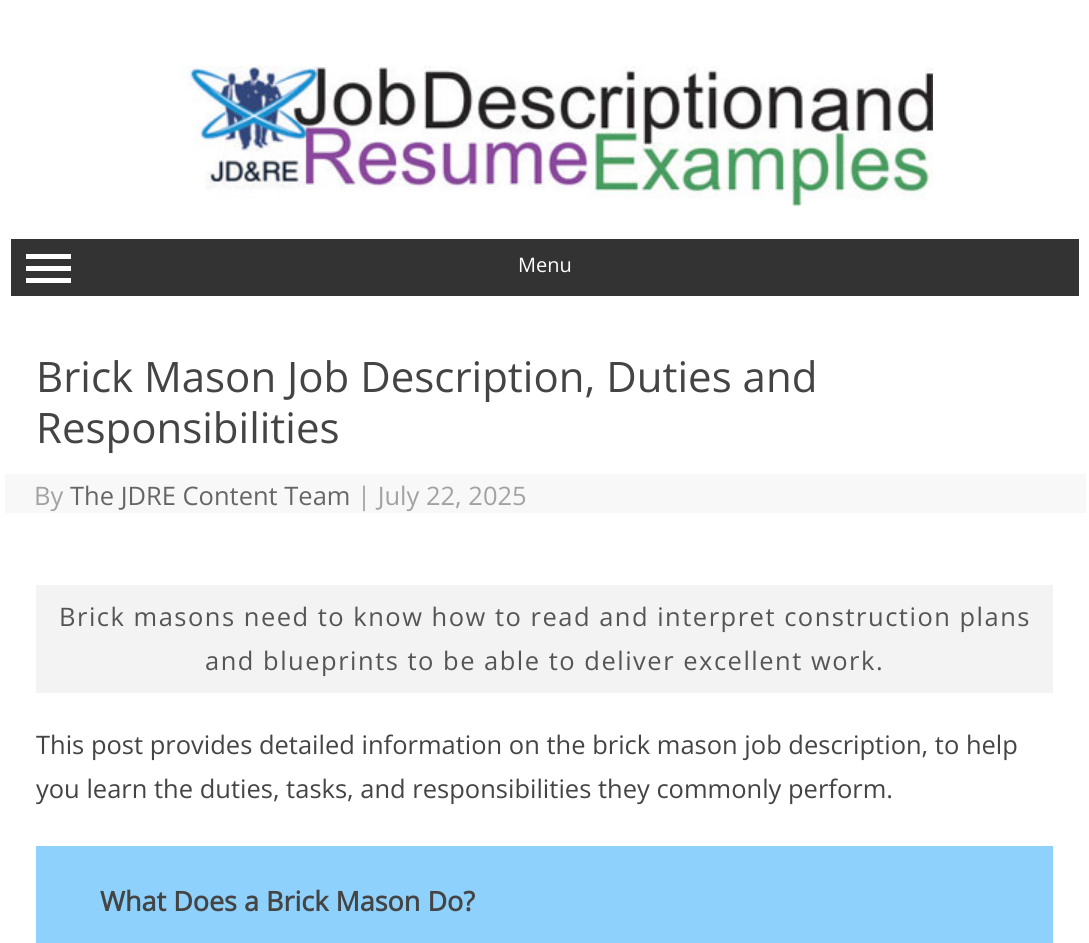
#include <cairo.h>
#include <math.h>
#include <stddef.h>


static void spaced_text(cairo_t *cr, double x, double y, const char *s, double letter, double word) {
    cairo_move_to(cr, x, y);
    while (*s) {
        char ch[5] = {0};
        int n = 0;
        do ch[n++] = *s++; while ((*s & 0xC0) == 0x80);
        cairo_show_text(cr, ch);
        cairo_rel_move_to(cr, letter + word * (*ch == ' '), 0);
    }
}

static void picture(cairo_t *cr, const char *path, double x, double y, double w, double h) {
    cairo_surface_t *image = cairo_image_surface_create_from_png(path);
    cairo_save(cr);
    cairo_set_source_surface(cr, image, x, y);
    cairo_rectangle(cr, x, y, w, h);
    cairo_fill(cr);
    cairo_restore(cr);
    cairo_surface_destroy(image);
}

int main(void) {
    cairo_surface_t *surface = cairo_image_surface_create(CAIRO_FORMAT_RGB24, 1089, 943);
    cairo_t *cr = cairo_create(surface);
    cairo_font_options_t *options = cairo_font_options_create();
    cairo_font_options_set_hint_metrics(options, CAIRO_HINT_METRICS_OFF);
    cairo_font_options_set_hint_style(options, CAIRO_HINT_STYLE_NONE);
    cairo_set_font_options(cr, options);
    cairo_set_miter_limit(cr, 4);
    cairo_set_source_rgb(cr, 1, 1, 1);
    cairo_paint(cr);
    picture(cr, "img1.png", 182, 66, 751, 140);
    cairo_set_source_rgb(cr, 0.2, 0.2, 0.2);
    cairo_rectangle(cr, 11, 239, 1068, 57);
    cairo_fill(cr);
    cairo_set_source_rgb(cr, 1, 1, 1);
    cairo_rectangle(cr, 26, 254, 45, 5);
    cairo_fill(cr);
    cairo_rectangle(cr, 26, 266, 45, 5);
    cairo_fill(cr);
    cairo_rectangle(cr, 26, 278, 45, 5);
    cairo_fill(cr);
    cairo_select_font_face(cr, "Open Sans", CAIRO_FONT_SLANT_NORMAL, CAIRO_FONT_WEIGHT_NORMAL);
    cairo_set_font_size(cr, 20);
    cairo_move_to(cr, 518, 272);
    cairo_show_text(cr, "Menu");
    cairo_set_font_size(cr, 42);
    cairo_set_source_rgb(cr, 0.267, 0.267, 0.267);
    cairo_move_to(cr, 36, 392);
    cairo_show_text(cr, "Brick Mason Job Description, Duties and");
    cairo_move_to(cr, 36, 443);
    cairo_show_text(cr, "Responsibilities");
    cairo_set_source_rgb(cr, 0.969, 0.969, 0.969);
    cairo_rectangle(cr, 5, 474, 1081, 39);
    cairo_fill(cr);
    cairo_set_font_size(cr, 25.5);
    cairo_set_source_rgb(cr, 0.635, 0.635, 0.635);
    cairo_move_to(cr, 34, 505);
    cairo_show_text(cr, "By");
    cairo_set_source_rgb(cr, 0.4, 0.4, 0.4);
    cairo_move_to(cr, 70, 505);
    cairo_show_text(cr, "The JDRE Content Team");
    cairo_set_source_rgb(cr, 0.635, 0.635, 0.635);
    cairo_move_to(cr, 357, 505);
    cairo_show_text(cr, "| July 22, 2025");
    cairo_set_source_rgb(cr, 0.953, 0.953, 0.953);
    cairo_rectangle(cr, 36, 585, 1017, 108);
    cairo_fill(cr);
    cairo_set_source_rgb(cr, 0.333, 0.333, 0.333);
    spaced_text(cr, 59, 626, "Brick masons need to know how to read and interpret construction plans", 1.5, 0);
    spaced_text(cr, 205, 670, "and blueprints to be able to deliver excellent work.", 1.5, 0);
    cairo_set_source_rgb(cr, 0.267, 0.267, 0.267);
    cairo_move_to(cr, 36, 754);
    cairo_show_text(cr, "This post provides detailed information on the brick mason job description, to help");
    cairo_move_to(cr, 36, 798);
    cairo_show_text(cr, "you learn the duties, tasks, and responsibilities they commonly perform.");
    cairo_set_source_rgb(cr, 0.557, 0.82, 0.988);
    cairo_rectangle(cr, 36, 846, 1017, 97);
    cairo_fill(cr);
    cairo_select_font_face(cr, "Open Sans", CAIRO_FONT_SLANT_NORMAL, CAIRO_FONT_WEIGHT_BOLD);
    cairo_set_font_size(cr, 27);
    cairo_set_source_rgb(cr, 0.267, 0.267, 0.267);
    cairo_move_to(cr, 100, 911);
    cairo_show_text(cr, "What Does a Brick Mason Do?");
    cairo_surface_write_to_png(surface, "page.png");
    cairo_font_options_destroy(options);
    cairo_destroy(cr);
    cairo_surface_destroy(surface);
    return 0;
}
